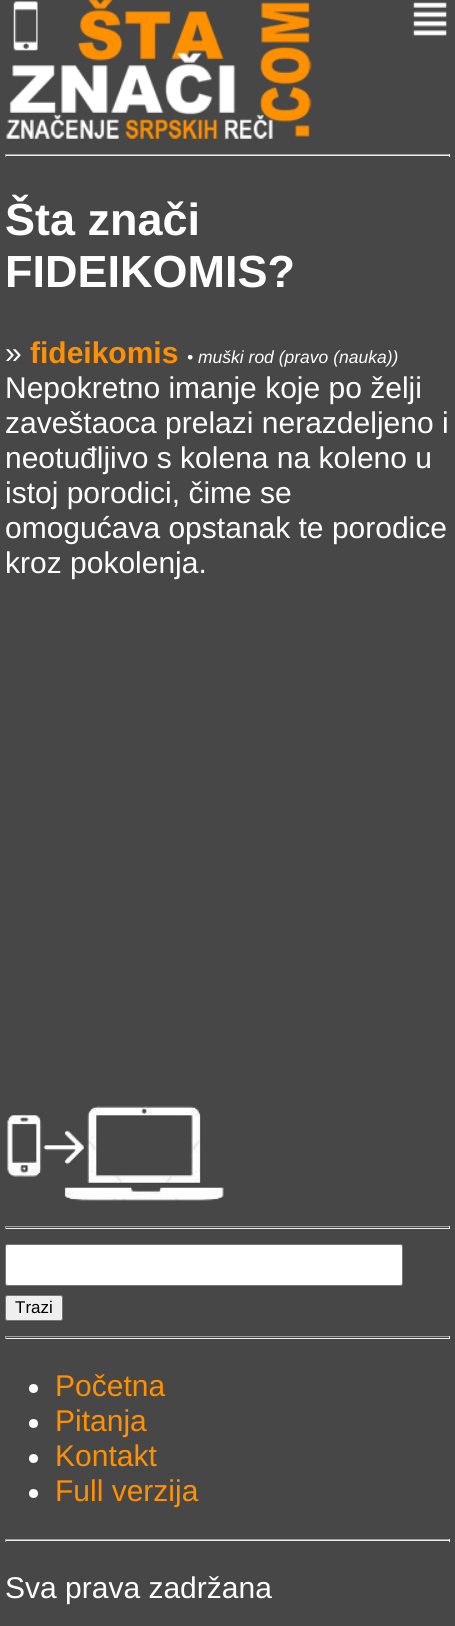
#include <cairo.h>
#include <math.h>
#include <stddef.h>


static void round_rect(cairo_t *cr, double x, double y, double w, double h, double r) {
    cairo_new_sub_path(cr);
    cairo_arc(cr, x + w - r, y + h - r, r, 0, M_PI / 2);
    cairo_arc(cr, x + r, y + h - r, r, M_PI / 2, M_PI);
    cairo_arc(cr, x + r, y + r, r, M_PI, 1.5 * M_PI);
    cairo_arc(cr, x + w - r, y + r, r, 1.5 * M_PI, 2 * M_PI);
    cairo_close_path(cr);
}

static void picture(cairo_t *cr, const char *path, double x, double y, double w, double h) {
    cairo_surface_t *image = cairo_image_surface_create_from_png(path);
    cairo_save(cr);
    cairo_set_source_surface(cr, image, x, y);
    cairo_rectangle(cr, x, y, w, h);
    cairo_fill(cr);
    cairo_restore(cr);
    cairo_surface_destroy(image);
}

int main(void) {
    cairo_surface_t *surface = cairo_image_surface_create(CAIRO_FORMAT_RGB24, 455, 1626);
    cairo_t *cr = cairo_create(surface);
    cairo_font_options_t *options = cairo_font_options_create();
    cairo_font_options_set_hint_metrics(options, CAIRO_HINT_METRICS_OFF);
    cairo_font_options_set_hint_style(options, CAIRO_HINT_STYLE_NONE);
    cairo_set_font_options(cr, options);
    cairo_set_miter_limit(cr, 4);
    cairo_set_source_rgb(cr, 0.278, 0.278, 0.278);
    cairo_paint(cr);
    picture(cr, "img1.png", 6, 0, 306, 139);
    picture(cr, "img2.png", 413, 2, 34, 34);
    cairo_set_source_rgb(cr, 0.624, 0.624, 0.624);
    cairo_rectangle(cr, 5, 154, 445, 1);
    cairo_fill(cr);
    cairo_set_source_rgb(cr, 0.933, 0.933, 0.933);
    cairo_rectangle(cr, 449, 154, 1, 3);
    cairo_fill(cr);
    cairo_rectangle(cr, 5, 155, 445, 1);
    cairo_fill(cr);
    cairo_set_source_rgb(cr, 0.624, 0.624, 0.624);
    cairo_rectangle(cr, 5, 154, 1, 3);
    cairo_fill(cr);
    cairo_select_font_face(cr, "Liberation Sans", CAIRO_FONT_SLANT_NORMAL, CAIRO_FONT_WEIGHT_BOLD);
    cairo_set_font_size(cr, 45);
    cairo_set_source_rgb(cr, 1, 1, 1);
    cairo_move_to(cr, 5, 235);
    cairo_show_text(cr, "Šta znači");
    cairo_move_to(cr, 5, 287);
    cairo_show_text(cr, "FIDEIKOMIS?");
    cairo_select_font_face(cr, "Liberation Sans", CAIRO_FONT_SLANT_NORMAL, CAIRO_FONT_WEIGHT_NORMAL);
    cairo_set_font_size(cr, 30);
    cairo_move_to(cr, 5, 363);
    cairo_show_text(cr, "»");
    cairo_select_font_face(cr, "Liberation Sans", CAIRO_FONT_SLANT_NORMAL, CAIRO_FONT_WEIGHT_BOLD);
    cairo_set_source_rgb(cr, 1, 0.565, 0);
    cairo_move_to(cr, 30, 363);
    cairo_show_text(cr, "fideikomis");
    cairo_select_font_face(cr, "Liberation Sans", CAIRO_FONT_SLANT_ITALIC, CAIRO_FONT_WEIGHT_NORMAL);
    cairo_set_font_size(cr, 17.5);
    cairo_set_source_rgb(cr, 1, 1, 1);
    cairo_move_to(cr, 187, 363);
    cairo_show_text(cr, "• muški rod (pravo (nauka))");
    cairo_select_font_face(cr, "Liberation Sans", CAIRO_FONT_SLANT_NORMAL, CAIRO_FONT_WEIGHT_NORMAL);
    cairo_set_font_size(cr, 30);
    cairo_move_to(cr, 5, 398);
    cairo_show_text(cr, "Nepokretno imanje koje po želji");
    cairo_move_to(cr, 5, 433);
    cairo_show_text(cr, "zaveštaoca prelazi nerazdeljeno i");
    cairo_move_to(cr, 5, 468);
    cairo_show_text(cr, "neotuđljivo s kolena na koleno u");
    cairo_move_to(cr, 5, 503);
    cairo_show_text(cr, "istoj porodici, čime se");
    cairo_move_to(cr, 5, 538);
    cairo_show_text(cr, "omogućava opstanak te porodice");
    cairo_move_to(cr, 5, 573);
    cairo_show_text(cr, "kroz pokolenja.");
    picture(cr, "img3.png", 7, 1106, 217, 95);
    cairo_set_source_rgb(cr, 0.624, 0.624, 0.624);
    cairo_rectangle(cr, 5, 1226, 445, 1);
    cairo_fill(cr);
    cairo_set_source_rgb(cr, 0.933, 0.933, 0.933);
    cairo_rectangle(cr, 449, 1226, 1, 3);
    cairo_fill(cr);
    cairo_rectangle(cr, 5, 1228, 445, 1);
    cairo_fill(cr);
    cairo_set_source_rgb(cr, 0.624, 0.624, 0.624);
    cairo_rectangle(cr, 5, 1226, 1, 3);
    cairo_fill(cr);
    cairo_set_source_rgb(cr, 1, 1, 1);
    round_rect(cr, 5.5, 1244.5, 397, 41, 2);
    cairo_fill_preserve(cr);
    cairo_set_source_rgb(cr, 0.463, 0.463, 0.463);
    cairo_set_line_width(cr, 1);
    cairo_stroke(cr);
    cairo_set_source_rgb(cr, 0.937, 0.937, 0.937);
    round_rect(cr, 5.5, 1295.5, 57, 25, 2);
    cairo_fill_preserve(cr);
    cairo_set_source_rgb(cr, 0.463, 0.463, 0.463);
    cairo_stroke(cr);
    cairo_set_font_size(cr, 17);
    cairo_set_source_rgb(cr, 0, 0, 0);
    cairo_move_to(cr, 15, 1313);
    cairo_show_text(cr, "Trazi");
    cairo_set_source_rgb(cr, 0.624, 0.624, 0.624);
    cairo_rectangle(cr, 5, 1336, 445, 1);
    cairo_fill(cr);
    cairo_set_source_rgb(cr, 0.933, 0.933, 0.933);
    cairo_rectangle(cr, 449, 1336, 1, 3);
    cairo_fill(cr);
    cairo_rectangle(cr, 5, 1338, 445, 1);
    cairo_fill(cr);
    cairo_set_source_rgb(cr, 0.624, 0.624, 0.624);
    cairo_rectangle(cr, 5, 1336, 1, 3);
    cairo_fill(cr);
    cairo_set_source_rgb(cr, 1, 1, 1);
    cairo_arc(cr, 33.5, 1388.5, 4.5, 0, 2 * M_PI);
    cairo_fill(cr);
    cairo_set_font_size(cr, 30);
    cairo_set_source_rgb(cr, 1, 0.565, 0);
    cairo_move_to(cr, 55, 1396);
    cairo_show_text(cr, "Početna");
    cairo_set_source_rgb(cr, 1, 1, 1);
    cairo_new_path(cr);
    cairo_arc(cr, 33.5, 1423.5, 4.5, 0, 2 * M_PI);
    cairo_fill(cr);
    cairo_set_source_rgb(cr, 1, 0.565, 0);
    cairo_move_to(cr, 55, 1431);
    cairo_show_text(cr, "Pitanja");
    cairo_set_source_rgb(cr, 1, 1, 1);
    cairo_new_path(cr);
    cairo_arc(cr, 33.5, 1458.5, 4.5, 0, 2 * M_PI);
    cairo_fill(cr);
    cairo_set_source_rgb(cr, 1, 0.565, 0);
    cairo_move_to(cr, 55, 1466);
    cairo_show_text(cr, "Kontakt");
    cairo_set_source_rgb(cr, 1, 1, 1);
    cairo_new_path(cr);
    cairo_arc(cr, 33.5, 1493.5, 4.5, 0, 2 * M_PI);
    cairo_fill(cr);
    cairo_set_source_rgb(cr, 1, 0.565, 0);
    cairo_move_to(cr, 55, 1501);
    cairo_show_text(cr, "Full verzija");
    cairo_set_source_rgb(cr, 0.624, 0.624, 0.624);
    cairo_rectangle(cr, 5, 1539, 445, 1);
    cairo_fill(cr);
    cairo_set_source_rgb(cr, 0.933, 0.933, 0.933);
    cairo_rectangle(cr, 449, 1539, 1, 3);
    cairo_fill(cr);
    cairo_rectangle(cr, 5, 1540, 445, 1);
    cairo_fill(cr);
    cairo_set_source_rgb(cr, 0.624, 0.624, 0.624);
    cairo_rectangle(cr, 5, 1539, 1, 3);
    cairo_fill(cr);
    cairo_set_source_rgb(cr, 1, 1, 1);
    cairo_move_to(cr, 5, 1598);
    cairo_show_text(cr, "Sva prava zadržana");
    cairo_surface_write_to_png(surface, "page.png");
    cairo_font_options_destroy(options);
    cairo_destroy(cr);
    cairo_surface_destroy(surface);
    return 0;
}
